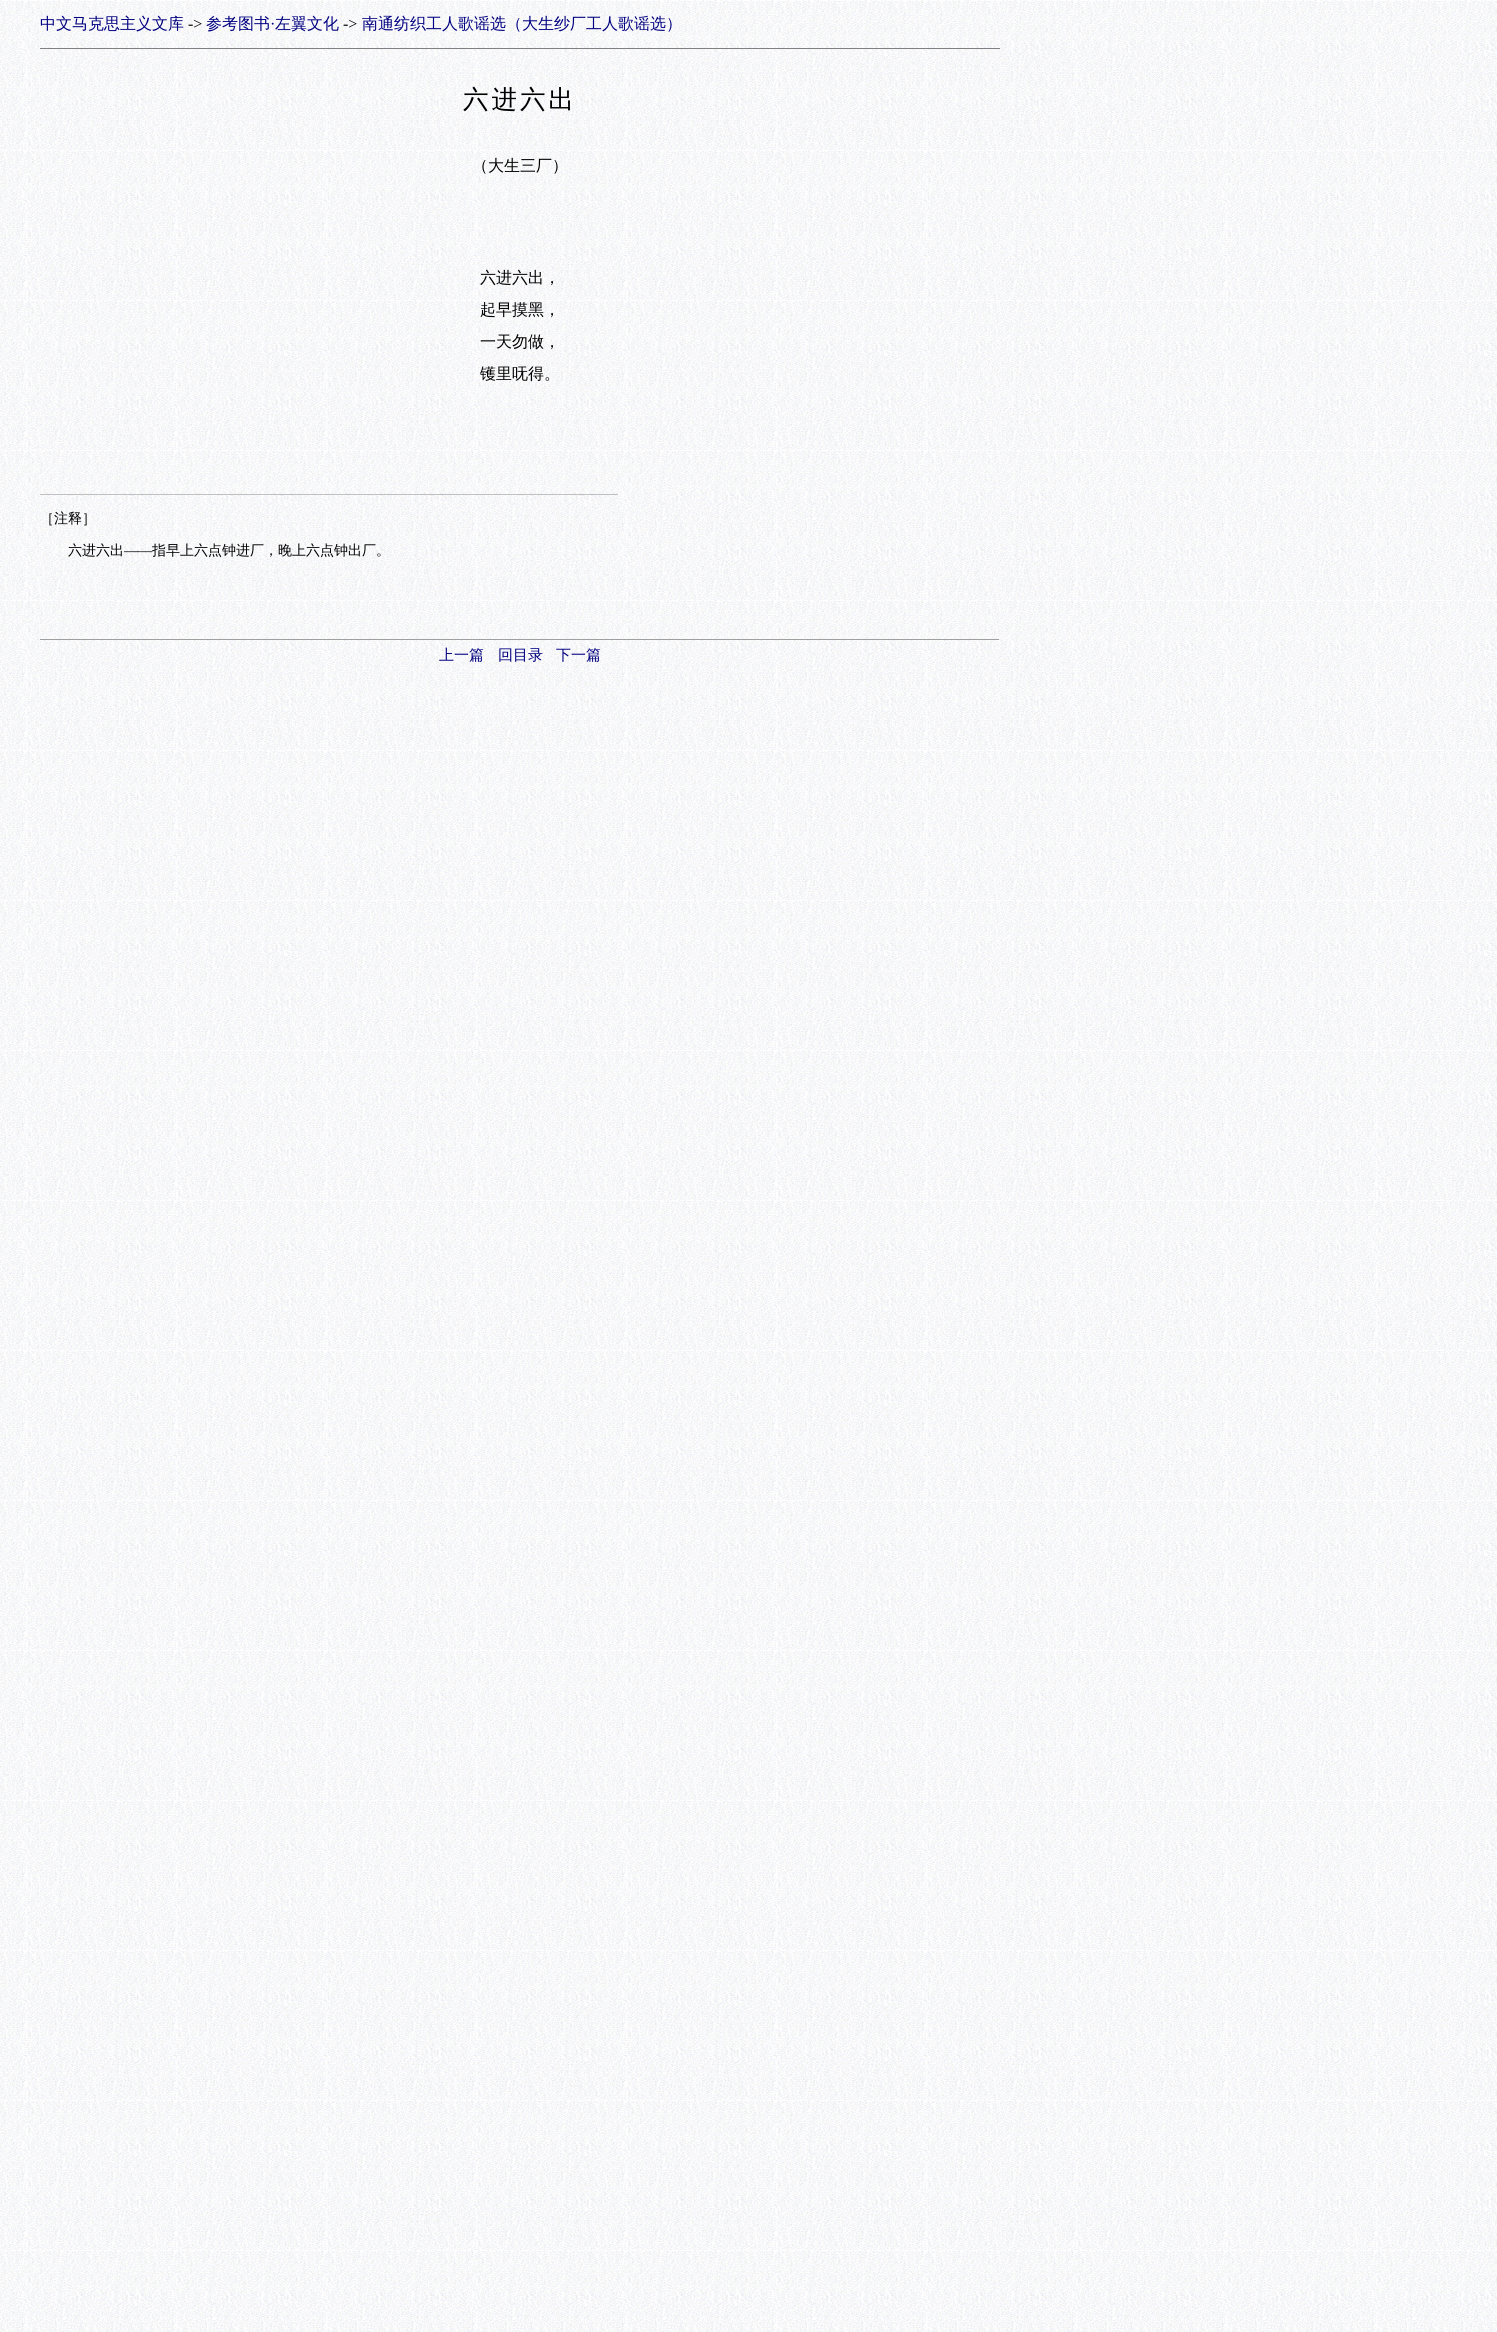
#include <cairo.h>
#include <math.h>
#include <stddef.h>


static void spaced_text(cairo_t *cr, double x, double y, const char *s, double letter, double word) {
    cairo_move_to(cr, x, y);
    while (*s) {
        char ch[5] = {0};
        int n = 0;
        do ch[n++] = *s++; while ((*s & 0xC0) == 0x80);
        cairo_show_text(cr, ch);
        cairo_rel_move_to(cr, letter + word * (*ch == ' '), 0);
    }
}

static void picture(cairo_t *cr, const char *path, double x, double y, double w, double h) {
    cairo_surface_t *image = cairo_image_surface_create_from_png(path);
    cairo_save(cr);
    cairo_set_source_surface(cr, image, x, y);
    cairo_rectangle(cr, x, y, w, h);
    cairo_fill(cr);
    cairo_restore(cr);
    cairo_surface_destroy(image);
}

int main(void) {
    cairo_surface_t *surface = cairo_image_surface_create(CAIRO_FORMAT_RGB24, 1497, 2332);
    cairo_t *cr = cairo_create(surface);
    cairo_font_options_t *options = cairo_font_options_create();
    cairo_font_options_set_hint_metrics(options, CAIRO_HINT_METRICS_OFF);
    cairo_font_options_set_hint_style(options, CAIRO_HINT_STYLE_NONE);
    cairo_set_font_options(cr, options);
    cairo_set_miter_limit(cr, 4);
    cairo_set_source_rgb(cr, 1, 1, 1);
    cairo_paint(cr);
    picture(cr, "img1.png", 0, 0, 1497, 2332);
    cairo_select_font_face(cr, "WenQuanYi Zen Hei Medium", CAIRO_FONT_SLANT_NORMAL, CAIRO_FONT_WEIGHT_NORMAL);
    cairo_set_font_size(cr, 16);
    cairo_set_source_rgb(cr, 0, 0, 0.502);
    cairo_move_to(cr, 40, 29);
    cairo_show_text(cr, "中文马克思主义文库");
    cairo_select_font_face(cr, "Liberation Serif", CAIRO_FONT_SLANT_NORMAL, CAIRO_FONT_WEIGHT_NORMAL);
    cairo_set_source_rgb(cr, 0, 0, 0);
    cairo_move_to(cr, 188, 29);
    cairo_show_text(cr, "->");
    cairo_select_font_face(cr, "WenQuanYi Zen Hei Medium", CAIRO_FONT_SLANT_NORMAL, CAIRO_FONT_WEIGHT_NORMAL);
    cairo_set_source_rgb(cr, 0, 0, 0.502);
    cairo_move_to(cr, 206, 29);
    cairo_show_text(cr, "参考图书");
    cairo_select_font_face(cr, "Liberation Serif", CAIRO_FONT_SLANT_NORMAL, CAIRO_FONT_WEIGHT_NORMAL);
    cairo_move_to(cr, 270, 29);
    cairo_show_text(cr, "·");
    cairo_select_font_face(cr, "WenQuanYi Zen Hei Medium", CAIRO_FONT_SLANT_NORMAL, CAIRO_FONT_WEIGHT_NORMAL);
    cairo_move_to(cr, 275, 29);
    cairo_show_text(cr, "左翼文化");
    cairo_select_font_face(cr, "Liberation Serif", CAIRO_FONT_SLANT_NORMAL, CAIRO_FONT_WEIGHT_NORMAL);
    cairo_set_source_rgb(cr, 0, 0, 0);
    cairo_move_to(cr, 343, 29);
    cairo_show_text(cr, "->");
    cairo_select_font_face(cr, "WenQuanYi Zen Hei Medium", CAIRO_FONT_SLANT_NORMAL, CAIRO_FONT_WEIGHT_NORMAL);
    cairo_set_source_rgb(cr, 0, 0, 0.502);
    cairo_move_to(cr, 362, 29);
    cairo_show_text(cr, "南通纺织工人歌谣选（大生纱厂工人歌谣选）");
    cairo_set_source_rgb(cr, 0.502, 0.502, 0.502);
    cairo_rectangle(cr, 40, 48, 960, 1);
    cairo_fill(cr);
    cairo_set_font_size(cr, 25.5);
    cairo_set_source_rgb(cr, 0, 0, 0);
    spaced_text(cr, 463, 108, "六进六出", 3, 0);
    cairo_set_font_size(cr, 16);
    cairo_move_to(cr, 472, 171);
    cairo_show_text(cr, "（大生三厂）");
    cairo_move_to(cr, 480, 283);
    cairo_show_text(cr, "六进六出，");
    cairo_move_to(cr, 480, 315);
    cairo_show_text(cr, "起早摸黑，");
    cairo_move_to(cr, 480, 347);
    cairo_show_text(cr, "一天勿做，");
    cairo_move_to(cr, 480, 379);
    cairo_show_text(cr, "镬里呒得。");
    cairo_set_source_rgb(cr, 0.753, 0.753, 0.753);
    cairo_rectangle(cr, 40, 494, 578, 1);
    cairo_fill(cr);
    cairo_set_font_size(cr, 14);
    cairo_set_source_rgb(cr, 0, 0, 0);
    cairo_move_to(cr, 40, 523);
    cairo_show_text(cr, "［注释］");
    cairo_move_to(cr, 68, 555);
    cairo_show_text(cr, "六进六出");
    cairo_select_font_face(cr, "Liberation Serif", CAIRO_FONT_SLANT_NORMAL, CAIRO_FONT_WEIGHT_NORMAL);
    cairo_move_to(cr, 124, 555);
    cairo_show_text(cr, "——");
    cairo_select_font_face(cr, "WenQuanYi Zen Hei Medium", CAIRO_FONT_SLANT_NORMAL, CAIRO_FONT_WEIGHT_NORMAL);
    cairo_move_to(cr, 152, 555);
    cairo_show_text(cr, "指早上六点钟进厂，晚上六点钟出厂。");
    cairo_set_source_rgb(cr, 0.624, 0.624, 0.624);
    cairo_rectangle(cr, 40, 639, 960, 1);
    cairo_fill(cr);
    cairo_set_source_rgb(cr, 0.933, 0.933, 0.933);
    cairo_rectangle(cr, 999, 639, 1, 1);
    cairo_fill(cr);
    cairo_set_font_size(cr, 15);
    cairo_set_source_rgb(cr, 0, 0, 0.502);
    cairo_move_to(cr, 439, 660);
    cairo_show_text(cr, "上一篇");
    cairo_move_to(cr, 498, 660);
    cairo_show_text(cr, "回目录");
    cairo_move_to(cr, 556, 660);
    cairo_show_text(cr, "下一篇");
    cairo_surface_write_to_png(surface, "page.png");
    cairo_font_options_destroy(options);
    cairo_destroy(cr);
    cairo_surface_destroy(surface);
    return 0;
}
